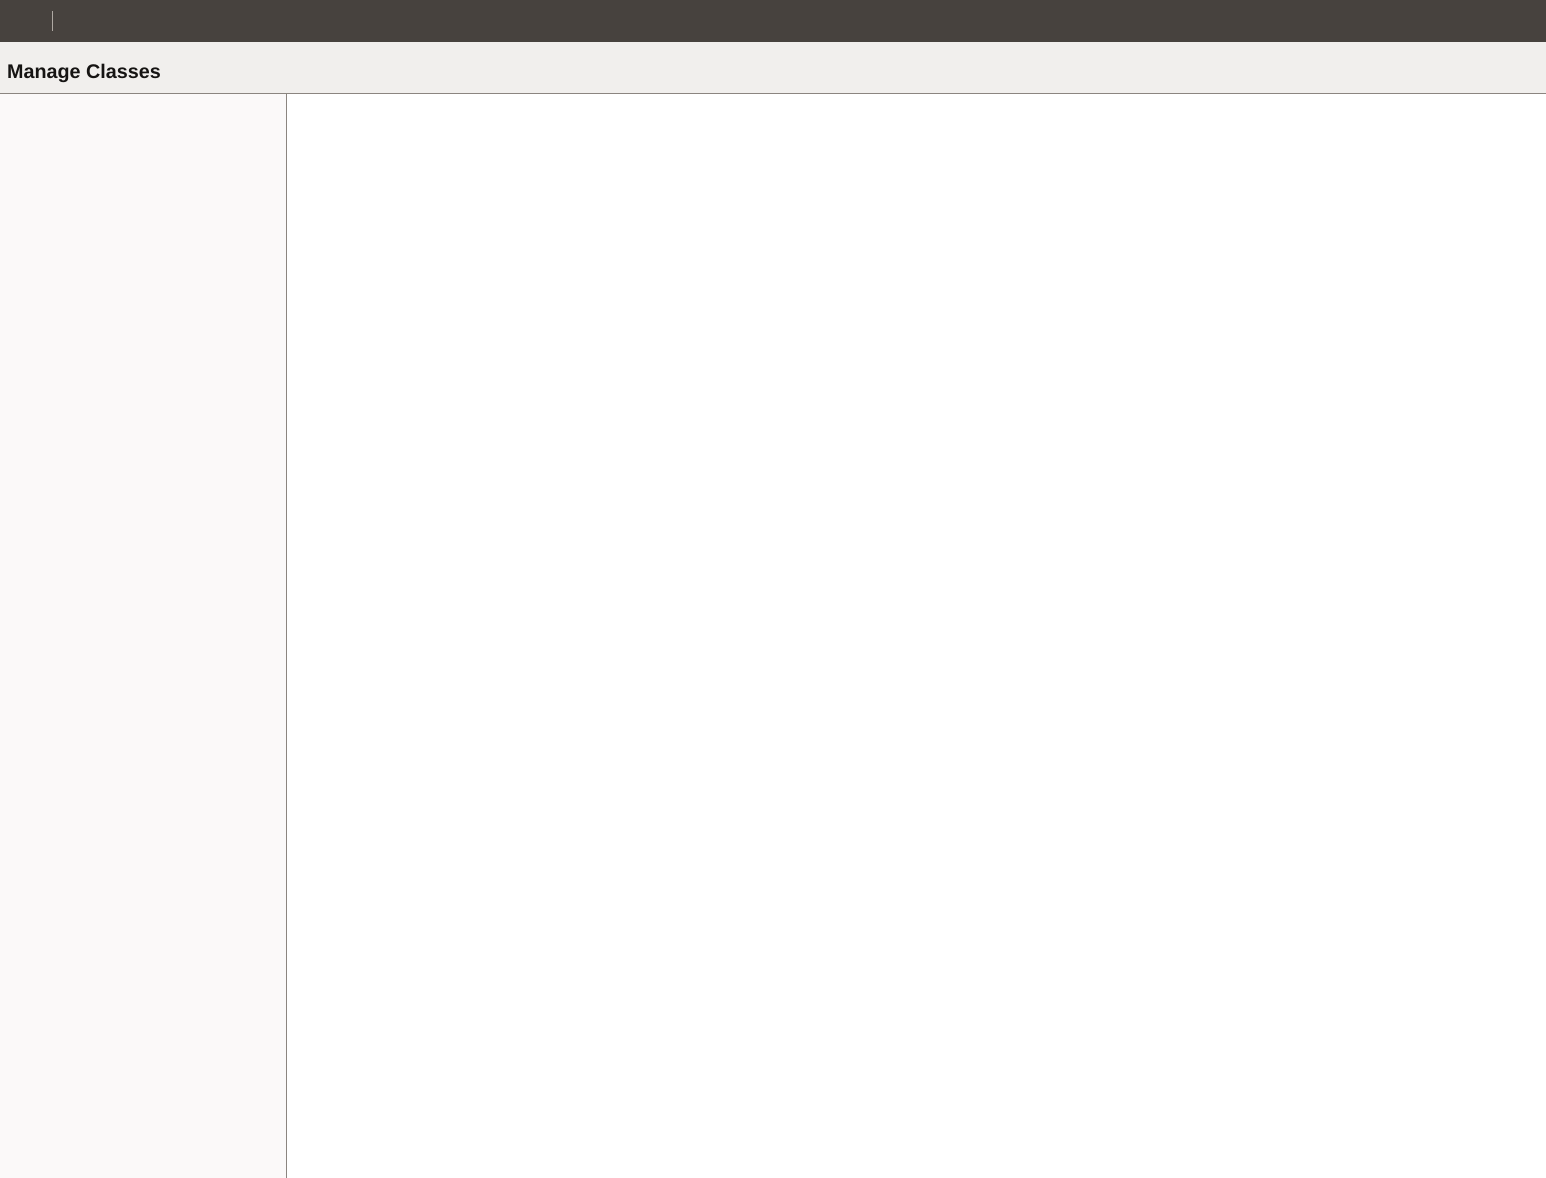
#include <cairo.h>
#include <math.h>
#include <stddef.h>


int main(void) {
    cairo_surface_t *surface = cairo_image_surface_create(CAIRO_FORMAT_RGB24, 1546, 1178);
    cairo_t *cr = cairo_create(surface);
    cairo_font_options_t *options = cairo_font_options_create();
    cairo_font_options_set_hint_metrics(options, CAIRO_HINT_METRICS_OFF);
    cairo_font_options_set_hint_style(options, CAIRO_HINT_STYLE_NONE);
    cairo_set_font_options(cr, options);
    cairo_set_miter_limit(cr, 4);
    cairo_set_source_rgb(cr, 1, 1, 1);
    cairo_paint(cr);
    cairo_set_source_rgb(cr, 0.278, 0.259, 0.243);
    cairo_rectangle(cr, 0, 0, 1546, 42);
    cairo_fill(cr);
    cairo_set_source_rgb(cr, 0.682, 0.659, 0.635);
    cairo_rectangle(cr, 52, 11, 1, 20);
    cairo_fill(cr);
    cairo_set_source_rgb(cr, 0.945, 0.937, 0.929);
    cairo_rectangle(cr, 0, 42, 1546, 51);
    cairo_fill(cr);
    cairo_set_source_rgb(cr, 0.545, 0.522, 0.502);
    cairo_rectangle(cr, 0, 93, 1546, 1);
    cairo_fill(cr);
    cairo_select_font_face(cr, "Liberation Sans", CAIRO_FONT_SLANT_NORMAL, CAIRO_FONT_WEIGHT_BOLD);
    cairo_set_font_size(cr, 19.75);
    cairo_set_source_rgb(cr, 0.086, 0.082, 0.075);
    cairo_move_to(cr, 7, 78);
    cairo_show_text(cr, "Manage Classes");
    cairo_set_source_rgb(cr, 0.984, 0.976, 0.973);
    cairo_rectangle(cr, 0, 94, 286, 1084);
    cairo_fill(cr);
    cairo_set_source_rgb(cr, 0.545, 0.522, 0.502);
    cairo_rectangle(cr, 286, 94, 1, 1084);
    cairo_fill(cr);
    cairo_surface_write_to_png(surface, "page.png");
    cairo_font_options_destroy(options);
    cairo_destroy(cr);
    cairo_surface_destroy(surface);
    return 0;
}
